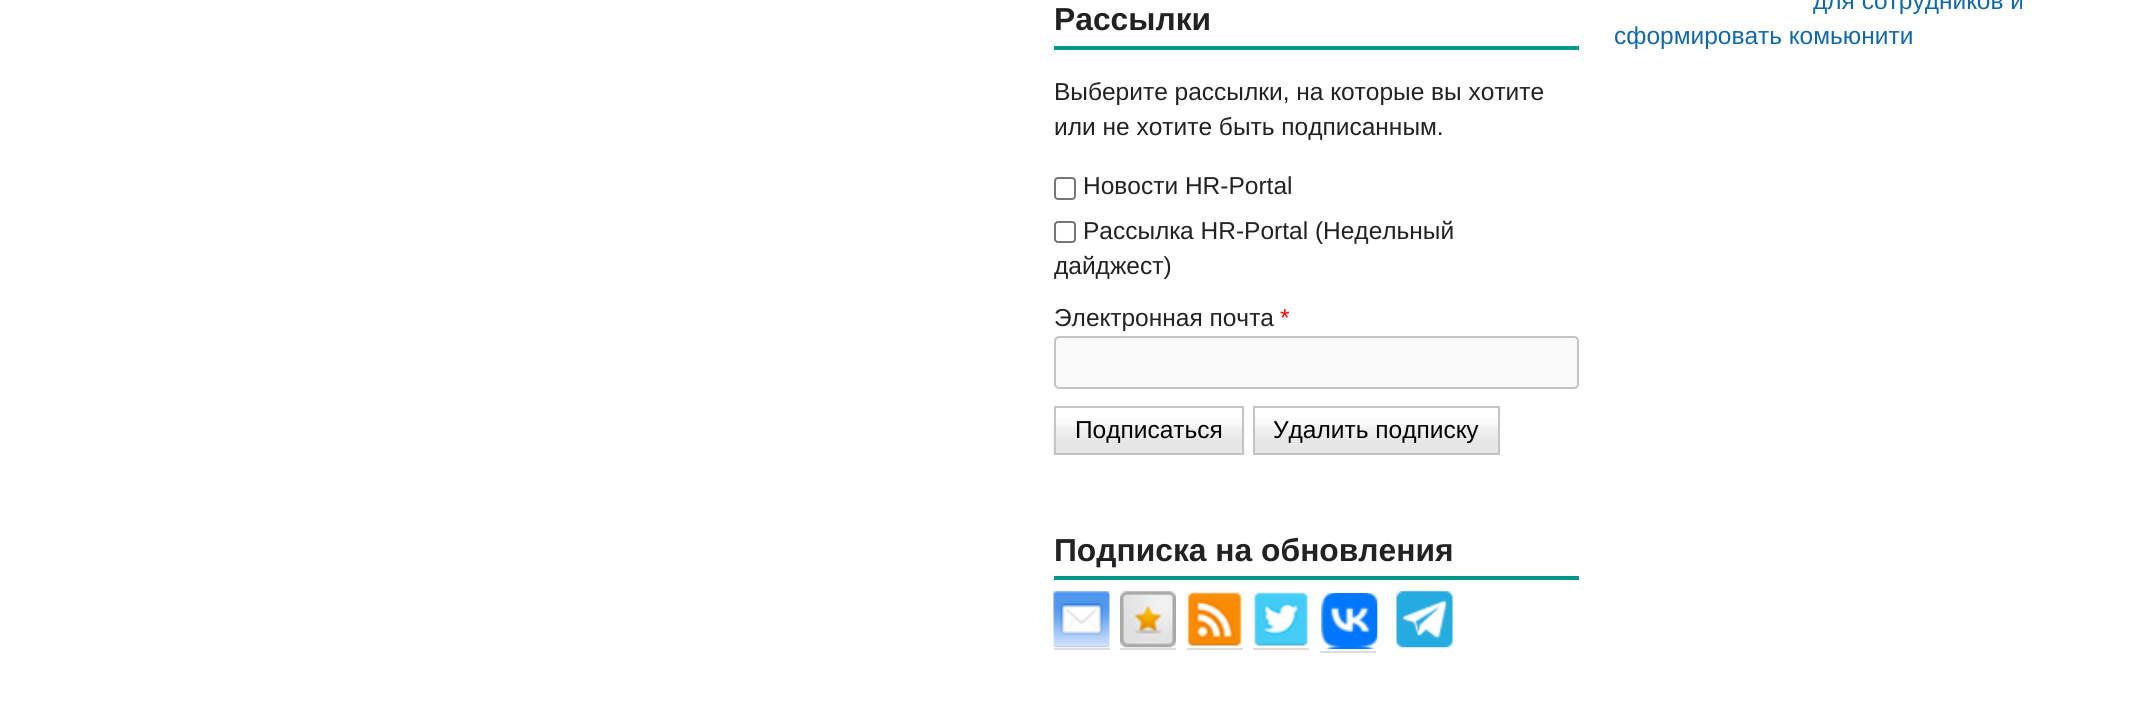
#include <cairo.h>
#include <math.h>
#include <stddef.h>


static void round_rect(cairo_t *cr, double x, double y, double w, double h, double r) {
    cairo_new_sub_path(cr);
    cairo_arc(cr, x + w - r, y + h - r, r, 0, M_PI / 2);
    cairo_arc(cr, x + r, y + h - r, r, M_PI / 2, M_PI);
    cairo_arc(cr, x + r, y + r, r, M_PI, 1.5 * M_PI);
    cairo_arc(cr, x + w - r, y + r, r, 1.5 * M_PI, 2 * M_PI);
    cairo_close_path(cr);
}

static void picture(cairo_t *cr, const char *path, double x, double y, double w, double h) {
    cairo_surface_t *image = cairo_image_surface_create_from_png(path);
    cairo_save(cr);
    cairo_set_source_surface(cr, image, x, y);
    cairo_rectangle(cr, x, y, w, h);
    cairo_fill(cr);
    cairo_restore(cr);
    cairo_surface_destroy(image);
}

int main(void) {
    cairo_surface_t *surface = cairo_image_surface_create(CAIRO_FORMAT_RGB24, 2137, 720);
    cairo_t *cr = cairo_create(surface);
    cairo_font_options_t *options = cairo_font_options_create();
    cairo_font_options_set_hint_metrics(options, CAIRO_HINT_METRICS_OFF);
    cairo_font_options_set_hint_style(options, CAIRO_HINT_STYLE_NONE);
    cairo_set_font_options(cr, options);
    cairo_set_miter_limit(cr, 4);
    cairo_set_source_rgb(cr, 1, 1, 1);
    cairo_paint(cr);
    cairo_select_font_face(cr, "Liberation Sans", CAIRO_FONT_SLANT_NORMAL, CAIRO_FONT_WEIGHT_BOLD);
    cairo_set_font_size(cr, 31.8);
    cairo_set_source_rgb(cr, 0.133, 0.133, 0.133);
    cairo_move_to(cr, 1054, 30);
    cairo_show_text(cr, "Рассылки");
    cairo_set_source_rgb(cr, 0, 0.588, 0.533);
    cairo_rectangle(cr, 1054, 46, 525, 4);
    cairo_fill(cr);
    cairo_select_font_face(cr, "Liberation Sans", CAIRO_FONT_SLANT_NORMAL, CAIRO_FONT_WEIGHT_NORMAL);
    cairo_set_font_size(cr, 24.5);
    cairo_set_source_rgb(cr, 0.133, 0.133, 0.133);
    cairo_move_to(cr, 1054, 100);
    cairo_show_text(cr, "Выберите рассылки, на которые вы хотите");
    cairo_move_to(cr, 1054, 135);
    cairo_show_text(cr, "или не хотите быть подписанным.");
    round_rect(cr, 1055, 178, 20, 21, 3);
    cairo_set_source_rgb(cr, 0.463, 0.463, 0.463);
    cairo_stroke(cr);
    cairo_set_source_rgb(cr, 0.133, 0.133, 0.133);
    cairo_move_to(cr, 1083, 194);
    cairo_show_text(cr, "Новости HR-Portal");
    round_rect(cr, 1055, 222, 20, 20, 3);
    cairo_set_source_rgb(cr, 0.463, 0.463, 0.463);
    cairo_stroke(cr);
    cairo_set_source_rgb(cr, 0.133, 0.133, 0.133);
    cairo_move_to(cr, 1083, 239);
    cairo_show_text(cr, "Рассылка HR-Portal (Недельный");
    cairo_move_to(cr, 1054, 274);
    cairo_show_text(cr, "дайджест)");
    cairo_move_to(cr, 1054, 326);
    cairo_show_text(cr, "Электронная почта");
    cairo_set_source_rgb(cr, 1, 0, 0);
    cairo_move_to(cr, 1280, 326);
    cairo_show_text(cr, "*");
    cairo_set_source_rgb(cr, 0.98, 0.98, 0.98);
    round_rect(cr, 1055, 337, 523, 51, 4);
    cairo_fill_preserve(cr);
    cairo_set_source_rgb(cr, 0.769, 0.769, 0.769);
    cairo_stroke(cr);
    picture(cr, "img1.png", 1053, 419, 192, 36);
    cairo_rectangle(cr, 1055, 407, 188, 47);
    cairo_stroke(cr);
    cairo_set_source_rgb(cr, 0, 0, 0);
    cairo_move_to(cr, 1075, 438);
    cairo_show_text(cr, "Подписаться");
    picture(cr, "img2.png", 1255, 419, 243, 34);
    cairo_rectangle(cr, 1254, 407, 245, 47);
    cairo_set_source_rgb(cr, 0.769, 0.769, 0.769);
    cairo_stroke(cr);
    cairo_set_source_rgb(cr, 0, 0, 0);
    cairo_move_to(cr, 1273, 438);
    cairo_show_text(cr, "Удалить подписку");
    cairo_select_font_face(cr, "Liberation Sans", CAIRO_FONT_SLANT_NORMAL, CAIRO_FONT_WEIGHT_BOLD);
    cairo_set_font_size(cr, 31.8);
    cairo_set_source_rgb(cr, 0.133, 0.133, 0.133);
    cairo_move_to(cr, 1054, 561);
    cairo_show_text(cr, "Подписка на обновления");
    cairo_set_source_rgb(cr, 0, 0.588, 0.533);
    cairo_rectangle(cr, 1054, 576, 525, 4);
    cairo_fill(cr);
    cairo_set_source_rgb(cr, 0.867, 0.867, 0.867);
    cairo_rectangle(cr, 1054, 648, 56, 2);
    cairo_fill(cr);
    picture(cr, "img3.png", 1053, 591, 57, 57);
    cairo_rectangle(cr, 1120, 648, 56, 2);
    cairo_fill(cr);
    picture(cr, "img4.png", 1120, 591, 56, 57);
    cairo_rectangle(cr, 1187, 648, 56, 2);
    cairo_fill(cr);
    picture(cr, "img5.png", 1187, 592, 55, 54);
    cairo_rectangle(cr, 1253, 648, 56, 2);
    cairo_fill(cr);
    picture(cr, "img6.png", 1254, 592, 54, 54);
    cairo_rectangle(cr, 1320, 651, 56, 2);
    cairo_fill(cr);
    picture(cr, "img7.png", 1321, 593, 57, 56);
    picture(cr, "img8.png", 1396, 591, 57, 57);
    cairo_select_font_face(cr, "Liberation Sans", CAIRO_FONT_SLANT_NORMAL, CAIRO_FONT_WEIGHT_NORMAL);
    cairo_set_font_size(cr, 24.5);
    cairo_set_source_rgb(cr, 0.071, 0.408, 0.655);
    cairo_move_to(cr, 1813, 9);
    cairo_show_text(cr, "для сотрудников и");
    cairo_move_to(cr, 1614, 44);
    cairo_show_text(cr, "сформировать комьюнити");
    cairo_surface_write_to_png(surface, "page.png");
    cairo_font_options_destroy(options);
    cairo_destroy(cr);
    cairo_surface_destroy(surface);
    return 0;
}
